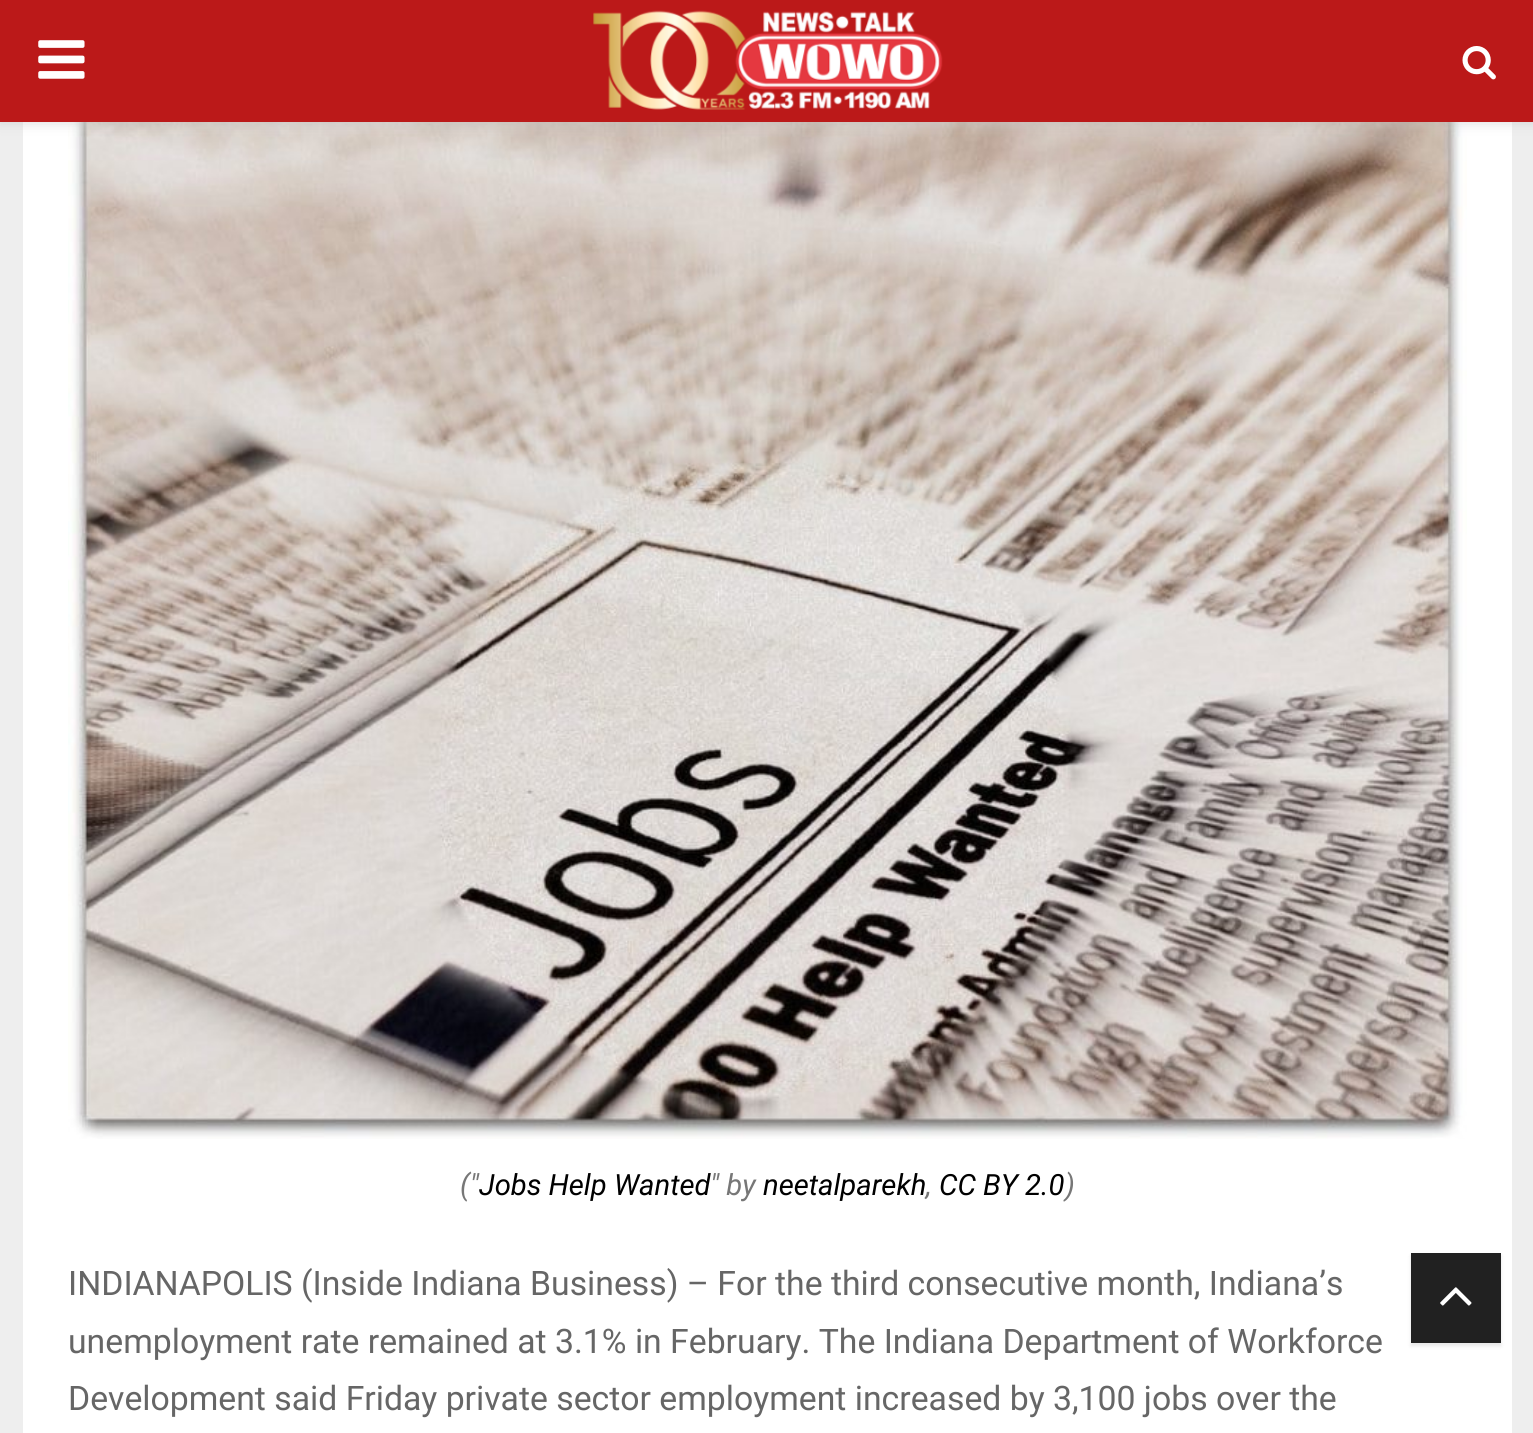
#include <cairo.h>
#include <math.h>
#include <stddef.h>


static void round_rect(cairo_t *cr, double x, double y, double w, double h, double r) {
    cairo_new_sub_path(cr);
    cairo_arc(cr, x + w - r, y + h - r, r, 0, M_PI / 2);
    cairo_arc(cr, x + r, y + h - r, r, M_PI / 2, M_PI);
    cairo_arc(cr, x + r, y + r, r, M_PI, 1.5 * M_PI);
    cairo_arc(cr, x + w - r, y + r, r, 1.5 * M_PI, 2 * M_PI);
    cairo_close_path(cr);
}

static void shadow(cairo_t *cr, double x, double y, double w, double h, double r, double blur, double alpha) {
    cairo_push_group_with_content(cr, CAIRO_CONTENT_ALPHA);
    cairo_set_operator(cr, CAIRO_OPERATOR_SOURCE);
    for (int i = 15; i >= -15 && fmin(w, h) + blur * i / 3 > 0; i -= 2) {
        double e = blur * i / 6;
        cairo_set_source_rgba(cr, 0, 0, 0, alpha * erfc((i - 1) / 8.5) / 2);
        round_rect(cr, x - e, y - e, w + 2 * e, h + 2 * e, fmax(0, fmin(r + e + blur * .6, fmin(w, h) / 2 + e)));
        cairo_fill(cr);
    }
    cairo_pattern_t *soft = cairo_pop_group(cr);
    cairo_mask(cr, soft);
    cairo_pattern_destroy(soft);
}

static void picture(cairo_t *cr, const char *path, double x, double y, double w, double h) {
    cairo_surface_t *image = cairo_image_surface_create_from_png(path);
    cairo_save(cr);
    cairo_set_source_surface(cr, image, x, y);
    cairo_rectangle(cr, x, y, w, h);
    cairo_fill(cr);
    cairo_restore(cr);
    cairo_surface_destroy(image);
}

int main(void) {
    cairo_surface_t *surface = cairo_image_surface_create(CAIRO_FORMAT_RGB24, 1533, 1433);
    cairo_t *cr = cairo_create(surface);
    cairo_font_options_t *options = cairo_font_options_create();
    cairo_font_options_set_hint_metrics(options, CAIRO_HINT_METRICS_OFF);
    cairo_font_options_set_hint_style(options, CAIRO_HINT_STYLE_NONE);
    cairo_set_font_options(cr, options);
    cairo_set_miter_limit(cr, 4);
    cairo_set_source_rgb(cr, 0.933, 0.933, 0.933);
    cairo_paint(cr);
    cairo_set_source_rgb(cr, 1, 1, 1);
    cairo_rectangle(cr, 23, 122, 1489, 1311);
    cairo_fill(cr);
    picture(cr, "img4.png", 68, 122, 1399, 1017);
    cairo_set_source_rgb(cr, 0.745, 0.745, 0.745);
    shadow(cr, 0, 2, 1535, 122, 0, 5.5, 0.46);
    cairo_set_source_rgb(cr, 0.733, 0.098, 0.098);
    cairo_rectangle(cr, 0, 0, 1533, 122);
    cairo_fill(cr);
    picture(cr, "img1.png", 38, 40, 47, 39);
    picture(cr, "img2.png", 593, 10, 350, 100);
    picture(cr, "img3.png", 1462, 46, 34, 34);
    cairo_select_font_face(cr, "Roboto", CAIRO_FONT_SLANT_ITALIC, CAIRO_FONT_WEIGHT_NORMAL);
    cairo_set_font_size(cr, 29.25);
    cairo_set_source_rgb(cr, 0.467, 0.467, 0.467);
    cairo_move_to(cr, 460, 1195);
    cairo_show_text(cr, "(\"");
    cairo_set_source_rgb(cr, 0, 0, 0);
    cairo_move_to(cr, 479, 1195);
    cairo_show_text(cr, "Jobs Help Wanted");
    cairo_set_source_rgb(cr, 0.467, 0.467, 0.467);
    cairo_move_to(cr, 710, 1195);
    cairo_show_text(cr, "\" by");
    cairo_set_source_rgb(cr, 0, 0, 0);
    cairo_move_to(cr, 763, 1195);
    cairo_show_text(cr, "neetalparekh");
    cairo_set_source_rgb(cr, 0.467, 0.467, 0.467);
    cairo_move_to(cr, 926, 1195);
    cairo_show_text(cr, ",");
    cairo_set_source_rgb(cr, 0, 0, 0);
    cairo_move_to(cr, 939, 1195);
    cairo_show_text(cr, "CC BY 2.0");
    cairo_set_source_rgb(cr, 0.467, 0.467, 0.467);
    cairo_move_to(cr, 1065, 1195);
    cairo_show_text(cr, ")");
    cairo_select_font_face(cr, "Roboto", CAIRO_FONT_SLANT_NORMAL, CAIRO_FONT_WEIGHT_NORMAL);
    cairo_set_font_size(cr, 33.75);
    cairo_set_source_rgb(cr, 0.4, 0.4, 0.4);
    cairo_move_to(cr, 68, 1295);
    cairo_show_text(cr, "INDIANAPOLIS (Inside Indiana Business) – For the third consecutive month, Indiana’s");
    cairo_move_to(cr, 68, 1353);
    cairo_show_text(cr, "unemployment rate remained at 3.1% in February. The Indiana Department of Workforce");
    cairo_move_to(cr, 68, 1410);
    cairo_show_text(cr, "Development said Friday private sector employment increased by 3,100 jobs over the");
    cairo_set_source_rgb(cr, 0, 0, 0);
    shadow(cr, 1411, 1256, 90, 90, 0, 2, 0.1);
    cairo_set_source_rgb(cr, 0.129, 0.129, 0.129);
    cairo_rectangle(cr, 1411, 1253, 90, 90);
    cairo_fill(cr);
    picture(cr, "img5.png", 1440, 1287, 32, 19);
    cairo_surface_write_to_png(surface, "page.png");
    cairo_font_options_destroy(options);
    cairo_destroy(cr);
    cairo_surface_destroy(surface);
    return 0;
}
